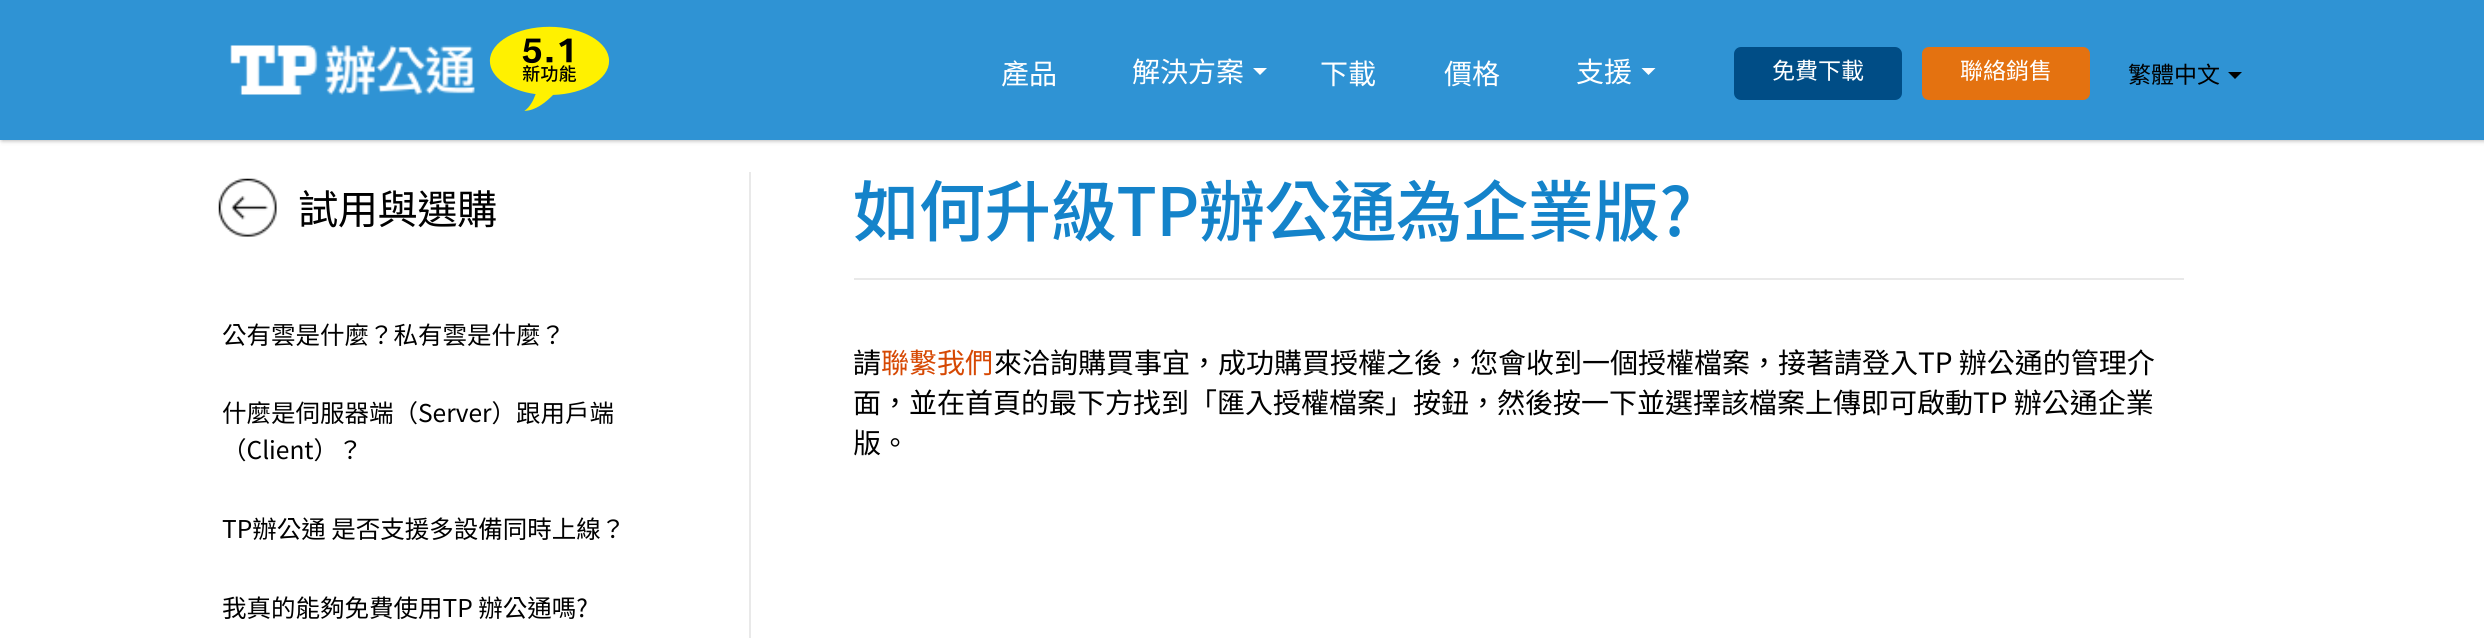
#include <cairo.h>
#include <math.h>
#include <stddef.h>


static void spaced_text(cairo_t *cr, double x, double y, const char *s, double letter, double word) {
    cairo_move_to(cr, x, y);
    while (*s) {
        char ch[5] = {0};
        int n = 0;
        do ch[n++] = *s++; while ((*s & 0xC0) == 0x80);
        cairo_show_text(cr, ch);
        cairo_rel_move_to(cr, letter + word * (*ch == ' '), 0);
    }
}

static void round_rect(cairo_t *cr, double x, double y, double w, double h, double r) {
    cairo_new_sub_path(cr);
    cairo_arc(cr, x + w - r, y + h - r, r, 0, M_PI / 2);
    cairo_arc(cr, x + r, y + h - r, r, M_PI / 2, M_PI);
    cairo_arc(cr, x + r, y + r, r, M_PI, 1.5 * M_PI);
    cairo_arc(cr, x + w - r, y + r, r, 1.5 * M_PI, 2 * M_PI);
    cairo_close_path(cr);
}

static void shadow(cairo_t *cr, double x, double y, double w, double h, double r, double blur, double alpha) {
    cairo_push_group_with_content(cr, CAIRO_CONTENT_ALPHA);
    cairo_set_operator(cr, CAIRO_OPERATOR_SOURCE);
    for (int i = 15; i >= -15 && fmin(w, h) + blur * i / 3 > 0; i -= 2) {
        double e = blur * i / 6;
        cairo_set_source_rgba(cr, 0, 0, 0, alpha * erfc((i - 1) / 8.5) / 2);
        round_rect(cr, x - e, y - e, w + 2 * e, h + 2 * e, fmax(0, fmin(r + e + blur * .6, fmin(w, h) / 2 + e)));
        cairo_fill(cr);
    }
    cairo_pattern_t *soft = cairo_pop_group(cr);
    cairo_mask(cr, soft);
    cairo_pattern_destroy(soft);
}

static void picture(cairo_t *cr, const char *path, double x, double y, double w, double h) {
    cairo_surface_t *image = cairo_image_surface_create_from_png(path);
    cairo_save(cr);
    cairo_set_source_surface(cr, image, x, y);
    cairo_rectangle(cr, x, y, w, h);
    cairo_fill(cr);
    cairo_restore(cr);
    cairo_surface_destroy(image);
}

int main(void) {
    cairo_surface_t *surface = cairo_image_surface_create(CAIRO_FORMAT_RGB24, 2484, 638);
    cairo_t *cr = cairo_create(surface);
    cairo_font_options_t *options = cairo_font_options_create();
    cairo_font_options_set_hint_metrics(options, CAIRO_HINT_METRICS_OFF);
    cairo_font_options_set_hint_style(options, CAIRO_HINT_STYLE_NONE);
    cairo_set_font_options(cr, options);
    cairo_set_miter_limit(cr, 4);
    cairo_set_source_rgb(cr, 1, 1, 1);
    cairo_paint(cr);
    cairo_set_source_rgb(cr, 0, 0, 0);
    shadow(cr, 2, 0, 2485, 140, 0, 2.5, 0.4);
    cairo_set_source_rgb(cr, 0.184, 0.576, 0.831);
    cairo_rectangle(cr, 0, 0, 2484, 140);
    cairo_fill(cr);
    picture(cr, "img1.png", 230, 45, 245, 50);
    picture(cr, "img2.png", 489, 26, 121, 85);
    cairo_select_font_face(cr, "Noto Sans TC", CAIRO_FONT_SLANT_NORMAL, CAIRO_FONT_WEIGHT_NORMAL);
    cairo_set_font_size(cr, 28);
    cairo_set_source_rgb(cr, 1, 1, 1);
    cairo_move_to(cr, 1001, 84);
    cairo_show_text(cr, "產品");
    cairo_move_to(cr, 1132, 82);
    cairo_show_text(cr, "解決方案");
    cairo_new_path(cr);
    cairo_move_to(cr, 1253, 68);
    cairo_line_to(cr, 1267, 68);
    cairo_line_to(cr, 1260, 75);
    cairo_close_path(cr);
    cairo_fill(cr);
    cairo_move_to(cr, 1320, 84);
    cairo_show_text(cr, "下載");
    cairo_move_to(cr, 1444, 84);
    cairo_show_text(cr, "價格");
    cairo_move_to(cr, 1576, 82);
    cairo_show_text(cr, "支援");
    cairo_new_path(cr);
    cairo_move_to(cr, 1641.5, 68);
    cairo_line_to(cr, 1655.5, 68);
    cairo_line_to(cr, 1648.5, 75);
    cairo_close_path(cr);
    cairo_fill(cr);
    cairo_set_source_rgb(cr, 0, 0.302, 0.525);
    round_rect(cr, 1734, 47, 168, 53, 7);
    cairo_fill(cr);
    cairo_set_font_size(cr, 23);
    cairo_set_source_rgb(cr, 1, 1, 1);
    cairo_move_to(cr, 1772, 79);
    cairo_show_text(cr, "免費下載");
    cairo_set_source_rgb(cr, 0.894, 0.447, 0.063);
    round_rect(cr, 1922, 47, 168, 53, 7);
    cairo_fill(cr);
    cairo_set_source_rgb(cr, 1, 1, 1);
    cairo_move_to(cr, 1960, 79);
    cairo_show_text(cr, "聯絡銷售");
    cairo_set_source_rgb(cr, 0, 0, 0);
    cairo_move_to(cr, 2128, 83);
    cairo_show_text(cr, "繁體中文");
    cairo_new_path(cr);
    cairo_move_to(cr, 2228, 72);
    cairo_line_to(cr, 2242, 72);
    cairo_line_to(cr, 2235, 79);
    cairo_close_path(cr);
    cairo_fill(cr);
    cairo_set_source_rgb(cr, 0.914, 0.914, 0.914);
    cairo_rectangle(cr, 749, 172, 2, 466);
    cairo_fill(cr);
    picture(cr, "img3.png", 218, 178, 59, 59);
    cairo_set_font_size(cr, 40.25);
    cairo_set_source_rgb(cr, 0, 0, 0);
    spaced_text(cr, 298, 224, "試用與選購", -0.5, 0);
    cairo_set_font_size(cr, 24.5);
    cairo_move_to(cr, 222, 344);
    cairo_show_text(cr, "公有雲是什麼？私有雲是什麼？");
    cairo_move_to(cr, 222, 422);
    cairo_show_text(cr, "什麼是伺服器端（Server）跟用戶端");
    cairo_move_to(cr, 222, 459);
    cairo_show_text(cr, "（Client）？");
    cairo_move_to(cr, 222, 538);
    cairo_show_text(cr, "TP辦公通 是否支援多設備同時上線？");
    cairo_move_to(cr, 222, 617);
    cairo_show_text(cr, "我真的能夠免費使用TP 辦公通嗎?");
    cairo_set_source_rgb(cr, 0.914, 0.914, 0.914);
    cairo_rectangle(cr, 854, 278, 1330, 2);
    cairo_fill(cr);
    cairo_select_font_face(cr, "Noto Sans TC Medium", CAIRO_FONT_SLANT_NORMAL, CAIRO_FONT_WEIGHT_NORMAL);
    cairo_set_font_size(cr, 66.5);
    cairo_set_source_rgb(cr, 0.082, 0.514, 0.792);
    spaced_text(cr, 853, 236, "如何升級TP辦公通為企業版?", -0.7, 0);
    cairo_select_font_face(cr, "Noto Sans TC", CAIRO_FONT_SLANT_NORMAL, CAIRO_FONT_WEIGHT_NORMAL);
    cairo_set_font_size(cr, 28);
    cairo_set_source_rgb(cr, 0, 0, 0);
    cairo_move_to(cr, 853, 373);
    cairo_show_text(cr, "請");
    cairo_set_source_rgb(cr, 0.839, 0.282, 0.012);
    cairo_move_to(cr, 881, 373);
    cairo_show_text(cr, "聯繫我們");
    cairo_set_source_rgb(cr, 0, 0, 0);
    cairo_move_to(cr, 994, 373);
    cairo_show_text(cr, "來洽詢購買事宜，成功購買授權之後，您會收到一個授權檔案，接著請登入TP 辦公通的管理介");
    cairo_move_to(cr, 853, 413);
    cairo_show_text(cr, "面，並在首頁的最下方找到「匯入授權檔案」按鈕，然後按一下並選擇該檔案上傳即可啟動TP 辦公通企業");
    cairo_move_to(cr, 853, 453);
    cairo_show_text(cr, "版。");
    cairo_surface_write_to_png(surface, "page.png");
    cairo_font_options_destroy(options);
    cairo_destroy(cr);
    cairo_surface_destroy(surface);
    return 0;
}
